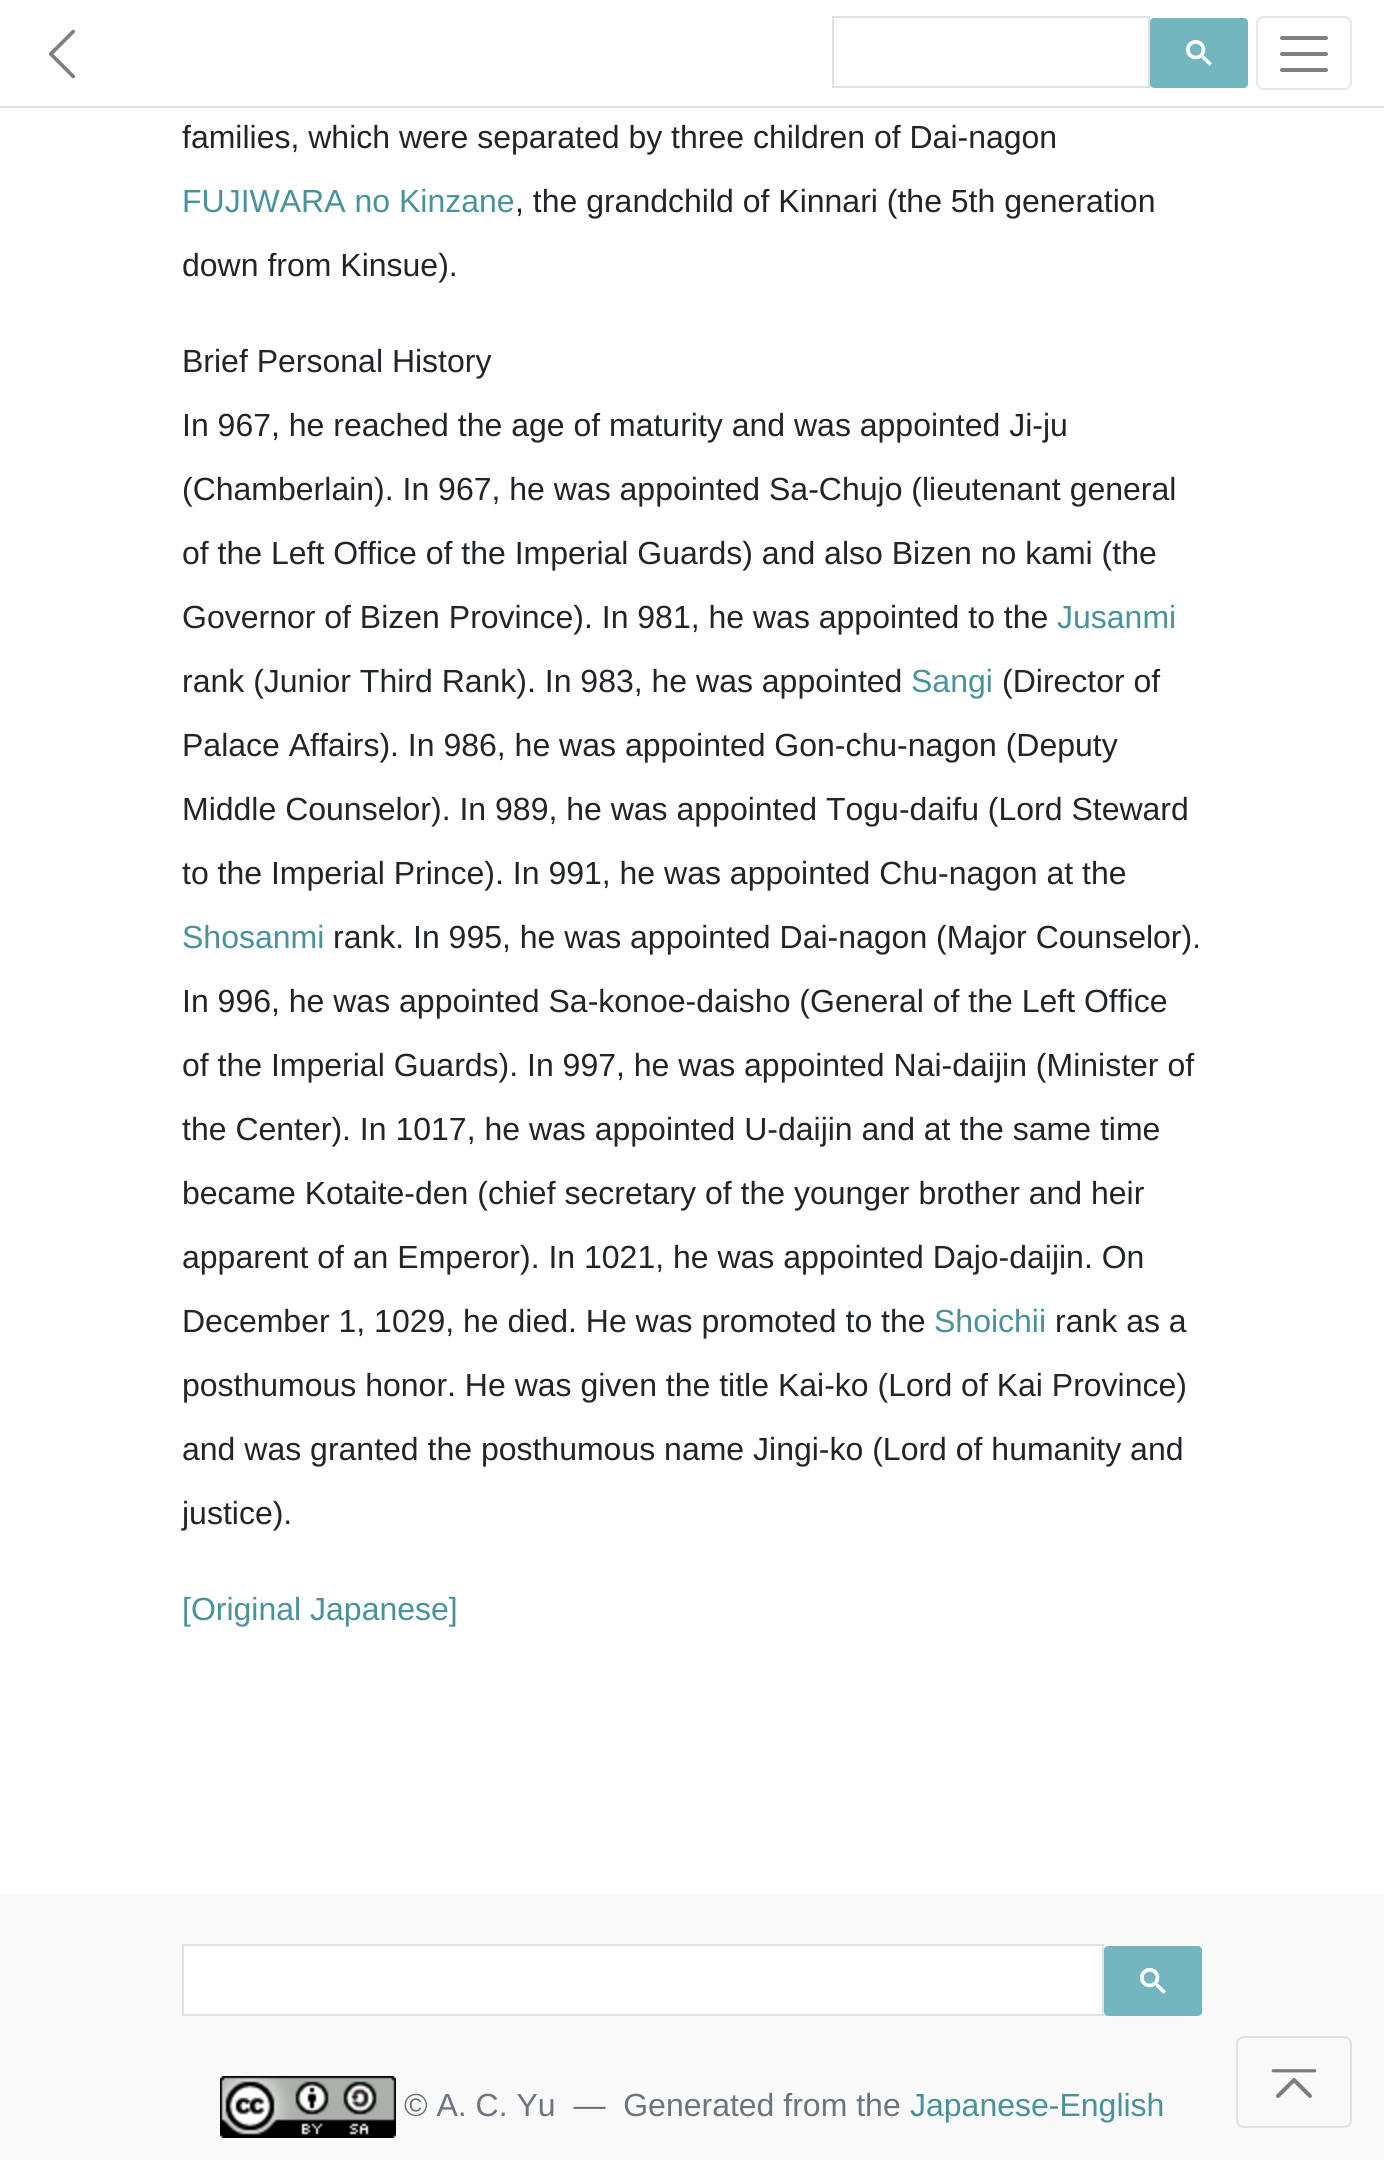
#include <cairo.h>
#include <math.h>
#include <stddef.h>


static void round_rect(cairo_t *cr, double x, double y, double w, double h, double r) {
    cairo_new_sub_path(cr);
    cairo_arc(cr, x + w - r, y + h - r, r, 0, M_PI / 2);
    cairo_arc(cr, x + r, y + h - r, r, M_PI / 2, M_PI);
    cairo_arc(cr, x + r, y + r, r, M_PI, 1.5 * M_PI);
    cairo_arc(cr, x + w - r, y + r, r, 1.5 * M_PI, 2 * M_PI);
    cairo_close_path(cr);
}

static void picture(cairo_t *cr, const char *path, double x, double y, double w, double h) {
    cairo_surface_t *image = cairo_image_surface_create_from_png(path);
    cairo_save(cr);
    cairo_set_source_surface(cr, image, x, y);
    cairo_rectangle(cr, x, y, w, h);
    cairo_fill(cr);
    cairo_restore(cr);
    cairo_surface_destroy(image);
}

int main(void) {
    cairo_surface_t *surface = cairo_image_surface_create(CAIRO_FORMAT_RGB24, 1384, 2160);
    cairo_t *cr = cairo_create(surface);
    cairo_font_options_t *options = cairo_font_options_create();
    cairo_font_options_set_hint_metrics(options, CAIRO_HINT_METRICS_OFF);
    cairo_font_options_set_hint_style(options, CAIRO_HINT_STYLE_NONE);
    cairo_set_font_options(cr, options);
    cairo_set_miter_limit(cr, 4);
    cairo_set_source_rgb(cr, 1, 1, 1);
    cairo_paint(cr);
    cairo_set_source_rgb(cr, 0.871, 0.886, 0.902);
    cairo_rectangle(cr, 0, 106, 1384, 2);
    cairo_fill(cr);
    picture(cr, "img1.png", 48, 29, 28, 50);
    cairo_rectangle(cr, 833, 17, 316, 70);
    cairo_set_source_rgb(cr, 0.875, 0.882, 0.898);
    cairo_stroke(cr);
    cairo_set_source_rgb(cr, 0.451, 0.714, 0.749);
    round_rect(cr, 1151, 19, 96, 68, 3);
    cairo_fill_preserve(cr);
    cairo_stroke(cr);
    picture(cr, "img2.png", 1186, 40, 26, 26);
    round_rect(cr, 1257, 17, 94, 72, 7);
    cairo_set_source_rgb(cr, 0.902, 0.902, 0.902);
    cairo_stroke(cr);
    cairo_new_path(cr);
    cairo_move_to(cr, 1282, 38);
    cairo_line_to(cr, 1326, 38);
    cairo_move_to(cr, 1282, 54);
    cairo_line_to(cr, 1326, 54);
    cairo_move_to(cr, 1282, 70);
    cairo_line_to(cr, 1326, 70);
    cairo_set_source_rgb(cr, 0.502, 0.502, 0.502);
    cairo_set_line_width(cr, 4);
    cairo_set_line_cap(cr, CAIRO_LINE_CAP_ROUND);
    cairo_stroke(cr);
    cairo_select_font_face(cr, "Liberation Sans", CAIRO_FONT_SLANT_NORMAL, CAIRO_FONT_WEIGHT_NORMAL);
    cairo_set_font_size(cr, 32);
    cairo_set_source_rgb(cr, 0.129, 0.145, 0.161);
    cairo_move_to(cr, 182, 148);
    cairo_show_text(cr, "families, which were separated by three children of Dai-nagon");
    cairo_set_source_rgb(cr, 0.282, 0.573, 0.608);
    cairo_move_to(cr, 182, 212);
    cairo_show_text(cr, "FUJIWARA no Kinzane");
    cairo_set_source_rgb(cr, 0.129, 0.145, 0.161);
    cairo_move_to(cr, 515, 212);
    cairo_show_text(cr, ", the grandchild of Kinnari (the 5th generation");
    cairo_move_to(cr, 182, 276);
    cairo_show_text(cr, "down from Kinsue).");
    cairo_move_to(cr, 182, 372);
    cairo_show_text(cr, "Brief Personal History");
    cairo_move_to(cr, 182, 436);
    cairo_show_text(cr, "In 967, he reached the age of maturity and was appointed Ji-ju");
    cairo_move_to(cr, 182, 500);
    cairo_show_text(cr, "(Chamberlain). In 967, he was appointed Sa-Chujo (lieutenant general");
    cairo_move_to(cr, 182, 564);
    cairo_show_text(cr, "of the Left Office of the Imperial Guards) and also Bizen no kami (the");
    cairo_move_to(cr, 182, 628);
    cairo_show_text(cr, "Governor of Bizen Province). In 981, he was appointed to the");
    cairo_set_source_rgb(cr, 0.282, 0.573, 0.608);
    cairo_move_to(cr, 1057, 628);
    cairo_show_text(cr, "Jusanmi");
    cairo_set_source_rgb(cr, 0.129, 0.145, 0.161);
    cairo_move_to(cr, 182, 692);
    cairo_show_text(cr, "rank (Junior Third Rank). In 983, he was appointed");
    cairo_set_source_rgb(cr, 0.282, 0.573, 0.608);
    cairo_move_to(cr, 911, 692);
    cairo_show_text(cr, "Sangi");
    cairo_set_source_rgb(cr, 0.129, 0.145, 0.161);
    cairo_move_to(cr, 1002, 692);
    cairo_show_text(cr, "(Director of");
    cairo_move_to(cr, 182, 756);
    cairo_show_text(cr, "Palace Affairs). In 986, he was appointed Gon-chu-nagon (Deputy");
    cairo_move_to(cr, 182, 820);
    cairo_show_text(cr, "Middle Counselor). In 989, he was appointed Togu-daifu (Lord Steward");
    cairo_move_to(cr, 182, 884);
    cairo_show_text(cr, "to the Imperial Prince). In 991, he was appointed Chu-nagon at the");
    cairo_set_source_rgb(cr, 0.282, 0.573, 0.608);
    cairo_move_to(cr, 182, 948);
    cairo_show_text(cr, "Shosanmi");
    cairo_set_source_rgb(cr, 0.129, 0.145, 0.161);
    cairo_move_to(cr, 333, 948);
    cairo_show_text(cr, "rank. In 995, he was appointed Dai-nagon (Major Counselor).");
    cairo_move_to(cr, 182, 1012);
    cairo_show_text(cr, "In 996, he was appointed Sa-konoe-daisho (General of the Left Office");
    cairo_move_to(cr, 182, 1076);
    cairo_show_text(cr, "of the Imperial Guards). In 997, he was appointed Nai-daijin (Minister of");
    cairo_move_to(cr, 182, 1140);
    cairo_show_text(cr, "the Center). In 1017, he was appointed U-daijin and at the same time");
    cairo_move_to(cr, 182, 1204);
    cairo_show_text(cr, "became Kotaite-den (chief secretary of the younger brother and heir");
    cairo_move_to(cr, 182, 1268);
    cairo_show_text(cr, "apparent of an Emperor). In 1021, he was appointed Dajo-daijin. On");
    cairo_move_to(cr, 182, 1332);
    cairo_show_text(cr, "December 1, 1029, he died. He was promoted to the");
    cairo_set_source_rgb(cr, 0.282, 0.573, 0.608);
    cairo_move_to(cr, 934, 1332);
    cairo_show_text(cr, "Shoichii");
    cairo_set_source_rgb(cr, 0.129, 0.145, 0.161);
    cairo_move_to(cr, 1055, 1332);
    cairo_show_text(cr, "rank as a");
    cairo_move_to(cr, 182, 1396);
    cairo_show_text(cr, "posthumous honor. He was given the title Kai-ko (Lord of Kai Province)");
    cairo_move_to(cr, 182, 1460);
    cairo_show_text(cr, "and was granted the posthumous name Jingi-ko (Lord of humanity and");
    cairo_move_to(cr, 182, 1524);
    cairo_show_text(cr, "justice).");
    cairo_set_source_rgb(cr, 0.282, 0.573, 0.608);
    cairo_move_to(cr, 182, 1620);
    cairo_show_text(cr, "[Original Japanese]");
    cairo_set_source_rgb(cr, 0.973, 0.976, 0.98);
    cairo_rectangle(cr, 0, 1894, 1384, 266);
    cairo_fill(cr);
    cairo_set_source_rgb(cr, 1, 1, 1);
    cairo_rectangle(cr, 183, 1945, 920, 70);
    cairo_fill_preserve(cr);
    cairo_set_source_rgb(cr, 0.875, 0.882, 0.898);
    cairo_set_line_width(cr, 2);
    cairo_set_line_cap(cr, CAIRO_LINE_CAP_BUTT);
    cairo_stroke(cr);
    cairo_set_source_rgb(cr, 0.451, 0.714, 0.749);
    round_rect(cr, 1105, 1947, 96, 68, 3);
    cairo_fill_preserve(cr);
    cairo_stroke(cr);
    picture(cr, "img2.png", 1140, 1968, 26, 26);
    picture(cr, "img3.png", 220, 2076, 176, 62);
    cairo_set_source_rgb(cr, 0.424, 0.459, 0.49);
    cairo_move_to(cr, 404, 2116);
    cairo_show_text(cr, "© A. C. Yu  —  Generated from the");
    cairo_set_source_rgb(cr, 0.282, 0.573, 0.608);
    cairo_move_to(cr, 910, 2116);
    cairo_show_text(cr, "Japanese-English");
    round_rect(cr, 1237, 2037, 114, 90, 7);
    cairo_set_source_rgb(cr, 0.875, 0.878, 0.882);
    cairo_stroke(cr);
    picture(cr, "img4.png", 1271, 2069, 46, 29);
    cairo_surface_write_to_png(surface, "page.png");
    cairo_font_options_destroy(options);
    cairo_destroy(cr);
    cairo_surface_destroy(surface);
    return 0;
}
